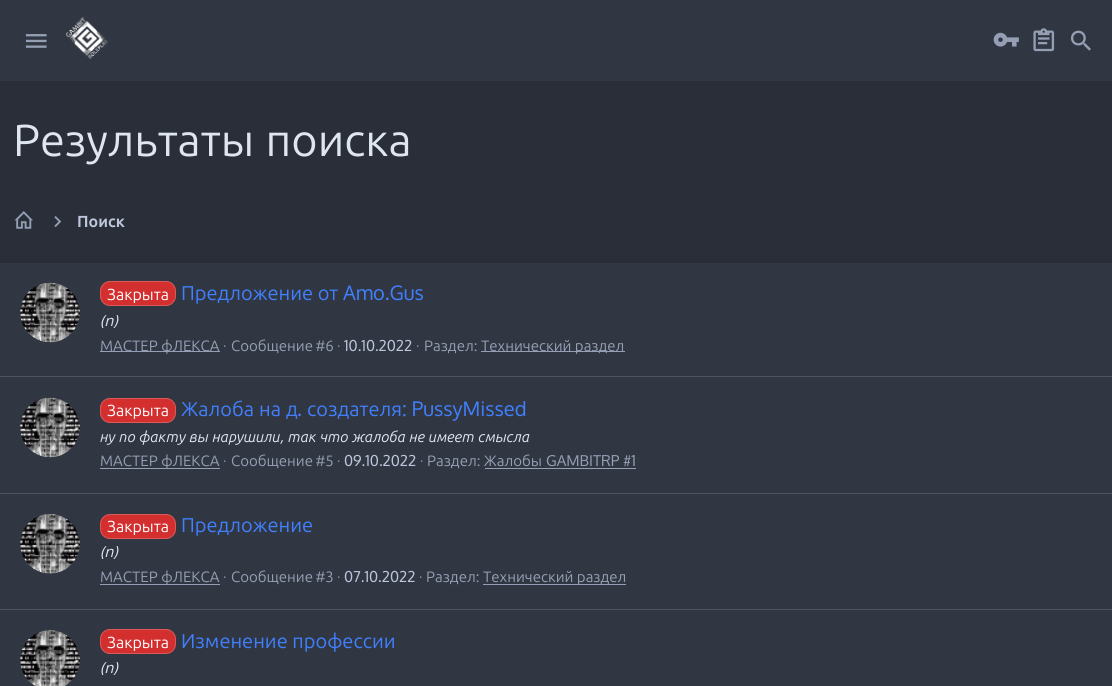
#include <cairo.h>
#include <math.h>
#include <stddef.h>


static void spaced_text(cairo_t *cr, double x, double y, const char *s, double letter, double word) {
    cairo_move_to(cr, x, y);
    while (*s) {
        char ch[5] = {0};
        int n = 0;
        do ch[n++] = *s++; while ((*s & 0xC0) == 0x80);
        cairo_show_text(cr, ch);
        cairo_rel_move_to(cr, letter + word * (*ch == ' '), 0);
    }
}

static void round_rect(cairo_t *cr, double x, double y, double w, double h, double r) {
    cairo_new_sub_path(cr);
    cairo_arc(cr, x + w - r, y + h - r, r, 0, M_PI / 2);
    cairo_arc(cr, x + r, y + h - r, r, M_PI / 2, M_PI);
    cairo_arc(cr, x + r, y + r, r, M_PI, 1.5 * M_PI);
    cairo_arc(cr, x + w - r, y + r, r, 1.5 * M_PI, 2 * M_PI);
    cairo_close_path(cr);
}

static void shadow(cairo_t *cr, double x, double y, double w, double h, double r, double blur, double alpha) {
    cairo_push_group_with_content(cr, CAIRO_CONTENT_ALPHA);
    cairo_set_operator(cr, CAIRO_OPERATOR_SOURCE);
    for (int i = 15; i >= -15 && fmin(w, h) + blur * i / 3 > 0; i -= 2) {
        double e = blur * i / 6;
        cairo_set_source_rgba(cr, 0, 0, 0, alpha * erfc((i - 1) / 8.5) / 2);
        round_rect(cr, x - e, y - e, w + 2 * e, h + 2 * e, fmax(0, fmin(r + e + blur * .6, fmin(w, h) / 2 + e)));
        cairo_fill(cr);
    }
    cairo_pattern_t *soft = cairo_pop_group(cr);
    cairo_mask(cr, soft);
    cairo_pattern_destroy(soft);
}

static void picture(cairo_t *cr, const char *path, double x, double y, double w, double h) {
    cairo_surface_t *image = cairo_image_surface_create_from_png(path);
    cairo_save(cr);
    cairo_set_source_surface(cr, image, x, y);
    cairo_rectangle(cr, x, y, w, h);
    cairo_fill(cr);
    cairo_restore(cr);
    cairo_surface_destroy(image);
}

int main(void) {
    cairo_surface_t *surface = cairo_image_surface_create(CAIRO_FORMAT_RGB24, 1112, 686);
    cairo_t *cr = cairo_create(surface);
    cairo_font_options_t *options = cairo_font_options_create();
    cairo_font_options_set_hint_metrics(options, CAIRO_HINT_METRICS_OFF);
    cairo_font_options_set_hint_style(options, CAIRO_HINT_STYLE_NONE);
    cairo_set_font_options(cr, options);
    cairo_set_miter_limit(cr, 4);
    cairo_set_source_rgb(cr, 0.161, 0.18, 0.224);
    cairo_paint(cr);
    cairo_set_source_rgb(cr, 0.192, 0.216, 0.259);
    cairo_rectangle(cr, 0, 0, 1112, 81);
    cairo_fill(cr);
    picture(cr, "img1.png", 25, 34, 22, 14);
    picture(cr, "img2.png", 66, 17, 42, 42);
    picture(cr, "img3.png", 993, 32, 26, 15);
    picture(cr, "img4.png", 1033, 28, 22, 24);
    picture(cr, "img5.png", 1071, 30, 20, 21);
    cairo_select_font_face(cr, "Ubuntu", CAIRO_FONT_SLANT_NORMAL, CAIRO_FONT_WEIGHT_NORMAL);
    cairo_set_font_size(cr, 45);
    cairo_set_source_rgb(cr, 0.878, 0.902, 0.941);
    spaced_text(cr, 13, 156, "Результаты поиска", 0, 1);
    picture(cr, "img6.png", 14, 211, 19, 18);
    picture(cr, "img7.png", 54, 216, 8, 12);
    cairo_select_font_face(cr, "Ubuntu", CAIRO_FONT_SLANT_NORMAL, CAIRO_FONT_WEIGHT_BOLD);
    cairo_set_font_size(cr, 16);
    cairo_set_source_rgb(cr, 0.741, 0.776, 0.859);
    cairo_move_to(cr, 77, 227);
    cairo_show_text(cr, "Поиск");
    cairo_set_source_rgb(cr, 0, 0, 0);
    shadow(cr, 0, 268, 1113, 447, 0, 9.5, 0.2);
    cairo_set_source_rgb(cr, 0.192, 0.216, 0.259);
    cairo_rectangle(cr, 0, 263, 1112, 423);
    cairo_fill(cr);
    picture(cr, "img8.png", 20, 282, 60, 61);
    cairo_set_source_rgb(cr, 0.827, 0.184, 0.184);
    round_rect(cr, 100.5, 281.5, 75, 24, 9.5);
    cairo_fill_preserve(cr);
    cairo_set_source_rgb(cr, 0.863, 0.349, 0.349);
    cairo_set_line_width(cr, 1);
    cairo_stroke(cr);
    cairo_select_font_face(cr, "Ubuntu", CAIRO_FONT_SLANT_NORMAL, CAIRO_FONT_WEIGHT_NORMAL);
    cairo_set_source_rgb(cr, 1, 1, 1);
    cairo_move_to(cr, 107, 300);
    cairo_show_text(cr, "Закрыта");
    cairo_set_font_size(cr, 20);
    cairo_set_source_rgb(cr, 0.251, 0.502, 1);
    cairo_move_to(cr, 181, 300);
    cairo_show_text(cr, "Предложение от");
    cairo_select_font_face(cr, "Oxygen", CAIRO_FONT_SLANT_NORMAL, CAIRO_FONT_WEIGHT_NORMAL);
    cairo_move_to(cr, 343, 300);
    cairo_show_text(cr, "Amo.Gus");
    cairo_select_font_face(cr, "Oxygen", CAIRO_FONT_SLANT_ITALIC, CAIRO_FONT_WEIGHT_NORMAL);
    cairo_set_font_size(cr, 15);
    cairo_set_source_rgb(cr, 0.878, 0.902, 0.941);
    cairo_move_to(cr, 100, 326);
    cairo_show_text(cr, "(n)");
    cairo_set_source_rgb(cr, 0.584, 0.624, 0.706);
    cairo_rectangle(cr, 100, 351, 120, 1);
    cairo_fill(cr);
    cairo_select_font_face(cr, "Ubuntu", CAIRO_FONT_SLANT_NORMAL, CAIRO_FONT_WEIGHT_NORMAL);
    cairo_move_to(cr, 100, 351);
    cairo_show_text(cr, "МАСТЕР фЛЕКСА");
    cairo_select_font_face(cr, "Oxygen", CAIRO_FONT_SLANT_NORMAL, CAIRO_FONT_WEIGHT_NORMAL);
    cairo_move_to(cr, 223, 351);
    cairo_show_text(cr, "·");
    cairo_select_font_face(cr, "Ubuntu", CAIRO_FONT_SLANT_NORMAL, CAIRO_FONT_WEIGHT_NORMAL);
    spaced_text(cr, 231, 351, "Сообщение #6", 0, -1);
    cairo_select_font_face(cr, "Oxygen", CAIRO_FONT_SLANT_NORMAL, CAIRO_FONT_WEIGHT_NORMAL);
    cairo_move_to(cr, 337, 351);
    cairo_show_text(cr, "·");
    cairo_set_source_rgb(cr, 0.741, 0.776, 0.859);
    cairo_move_to(cr, 344, 351);
    cairo_show_text(cr, "10.10.2022");
    cairo_set_source_rgb(cr, 0.584, 0.624, 0.706);
    cairo_move_to(cr, 416, 351);
    cairo_show_text(cr, "·");
    cairo_select_font_face(cr, "Ubuntu", CAIRO_FONT_SLANT_NORMAL, CAIRO_FONT_WEIGHT_NORMAL);
    cairo_move_to(cr, 424, 351);
    cairo_show_text(cr, "Раздел:");
    cairo_rectangle(cr, 481, 351, 144, 1);
    cairo_fill(cr);
    cairo_move_to(cr, 481, 351);
    cairo_show_text(cr, "Технический раздел");
    cairo_set_source_rgb(cr, 0.302, 0.329, 0.376);
    cairo_rectangle(cr, 0, 376, 1112, 1);
    cairo_fill(cr);
    picture(cr, "img9.png", 20, 397, 60, 61);
    cairo_set_source_rgb(cr, 0.827, 0.184, 0.184);
    round_rect(cr, 100.5, 398.5, 75, 24, 9.5);
    cairo_fill_preserve(cr);
    cairo_set_source_rgb(cr, 0.863, 0.349, 0.349);
    cairo_stroke(cr);
    cairo_set_font_size(cr, 16);
    cairo_set_source_rgb(cr, 1, 1, 1);
    cairo_move_to(cr, 107, 416);
    cairo_show_text(cr, "Закрыта");
    cairo_set_font_size(cr, 20);
    cairo_set_source_rgb(cr, 0.251, 0.502, 1);
    cairo_move_to(cr, 181, 416);
    cairo_show_text(cr, "Жалоба");
    cairo_move_to(cr, 259, 416);
    cairo_show_text(cr, "на");
    cairo_move_to(cr, 286, 416);
    cairo_show_text(cr, "д");
    cairo_select_font_face(cr, "Oxygen", CAIRO_FONT_SLANT_NORMAL, CAIRO_FONT_WEIGHT_NORMAL);
    cairo_move_to(cr, 297, 416);
    cairo_show_text(cr, ".");
    cairo_select_font_face(cr, "Ubuntu", CAIRO_FONT_SLANT_NORMAL, CAIRO_FONT_WEIGHT_NORMAL);
    cairo_move_to(cr, 307, 416);
    cairo_show_text(cr, "создателя");
    cairo_select_font_face(cr, "Oxygen", CAIRO_FONT_SLANT_NORMAL, CAIRO_FONT_WEIGHT_NORMAL);
    cairo_move_to(cr, 402, 416);
    cairo_show_text(cr, ": PussyMissed");
    cairo_select_font_face(cr, "Ubuntu", CAIRO_FONT_SLANT_ITALIC, CAIRO_FONT_WEIGHT_NORMAL);
    cairo_set_font_size(cr, 15);
    cairo_set_source_rgb(cr, 0.878, 0.902, 0.941);
    spaced_text(cr, 100, 442, "ну по факту вы нарушили", 0, 0.25);
    cairo_select_font_face(cr, "Oxygen", CAIRO_FONT_SLANT_ITALIC, CAIRO_FONT_WEIGHT_NORMAL);
    cairo_move_to(cr, 280, 442);
    cairo_show_text(cr, ",");
    cairo_select_font_face(cr, "Ubuntu", CAIRO_FONT_SLANT_ITALIC, CAIRO_FONT_WEIGHT_NORMAL);
    spaced_text(cr, 288, 442, "так что жалоба не имеет смысла", 0, 0.25);
    cairo_set_source_rgb(cr, 0.584, 0.624, 0.706);
    cairo_rectangle(cr, 100, 468, 120, 1);
    cairo_fill(cr);
    cairo_select_font_face(cr, "Ubuntu", CAIRO_FONT_SLANT_NORMAL, CAIRO_FONT_WEIGHT_NORMAL);
    cairo_move_to(cr, 100, 466);
    cairo_show_text(cr, "МАСТЕР фЛЕКСА");
    cairo_select_font_face(cr, "Oxygen", CAIRO_FONT_SLANT_NORMAL, CAIRO_FONT_WEIGHT_NORMAL);
    cairo_move_to(cr, 223, 466);
    cairo_show_text(cr, "·");
    cairo_select_font_face(cr, "Ubuntu", CAIRO_FONT_SLANT_NORMAL, CAIRO_FONT_WEIGHT_NORMAL);
    spaced_text(cr, 231, 466, "Сообщение #5", 0, -1);
    cairo_select_font_face(cr, "Oxygen", CAIRO_FONT_SLANT_NORMAL, CAIRO_FONT_WEIGHT_NORMAL);
    cairo_move_to(cr, 337, 466);
    cairo_show_text(cr, "·");
    cairo_set_source_rgb(cr, 0.741, 0.776, 0.859);
    cairo_move_to(cr, 344, 466);
    cairo_show_text(cr, "09.10.2022");
    cairo_set_source_rgb(cr, 0.584, 0.624, 0.706);
    cairo_move_to(cr, 420, 466);
    cairo_show_text(cr, "·");
    cairo_select_font_face(cr, "Ubuntu", CAIRO_FONT_SLANT_NORMAL, CAIRO_FONT_WEIGHT_NORMAL);
    cairo_move_to(cr, 427, 466);
    cairo_show_text(cr, "Раздел: Жалобы");
    cairo_rectangle(cr, 485, 468, 151, 1);
    cairo_fill(cr);
    cairo_select_font_face(cr, "Oxygen", CAIRO_FONT_SLANT_NORMAL, CAIRO_FONT_WEIGHT_NORMAL);
    cairo_move_to(cr, 546, 466);
    cairo_show_text(cr, "GAMBITRP #1");
    cairo_set_source_rgb(cr, 0.302, 0.329, 0.376);
    cairo_rectangle(cr, 0, 493, 1112, 1);
    cairo_fill(cr);
    picture(cr, "img10.png", 20, 514, 60, 60);
    cairo_set_source_rgb(cr, 0.827, 0.184, 0.184);
    round_rect(cr, 100.5, 514.5, 75, 24, 9.5);
    cairo_fill_preserve(cr);
    cairo_set_source_rgb(cr, 0.863, 0.349, 0.349);
    cairo_stroke(cr);
    cairo_select_font_face(cr, "Ubuntu", CAIRO_FONT_SLANT_NORMAL, CAIRO_FONT_WEIGHT_NORMAL);
    cairo_set_font_size(cr, 16);
    cairo_set_source_rgb(cr, 1, 1, 1);
    cairo_move_to(cr, 107, 532);
    cairo_show_text(cr, "Закрыта");
    cairo_set_font_size(cr, 20);
    cairo_set_source_rgb(cr, 0.251, 0.502, 1);
    cairo_move_to(cr, 181, 532);
    cairo_show_text(cr, "Предложение");
    cairo_select_font_face(cr, "Oxygen", CAIRO_FONT_SLANT_ITALIC, CAIRO_FONT_WEIGHT_NORMAL);
    cairo_set_font_size(cr, 15);
    cairo_set_source_rgb(cr, 0.878, 0.902, 0.941);
    cairo_move_to(cr, 100, 557);
    cairo_show_text(cr, "(n)");
    cairo_set_source_rgb(cr, 0.584, 0.624, 0.706);
    cairo_rectangle(cr, 100, 584, 120, 1);
    cairo_fill(cr);
    cairo_select_font_face(cr, "Ubuntu", CAIRO_FONT_SLANT_NORMAL, CAIRO_FONT_WEIGHT_NORMAL);
    cairo_move_to(cr, 100, 582);
    cairo_show_text(cr, "МАСТЕР фЛЕКСА");
    cairo_select_font_face(cr, "Oxygen", CAIRO_FONT_SLANT_NORMAL, CAIRO_FONT_WEIGHT_NORMAL);
    cairo_move_to(cr, 223, 582);
    cairo_show_text(cr, "·");
    cairo_select_font_face(cr, "Ubuntu", CAIRO_FONT_SLANT_NORMAL, CAIRO_FONT_WEIGHT_NORMAL);
    spaced_text(cr, 231, 582, "Сообщение #3", 0, -1);
    cairo_select_font_face(cr, "Oxygen", CAIRO_FONT_SLANT_NORMAL, CAIRO_FONT_WEIGHT_NORMAL);
    cairo_move_to(cr, 337, 582);
    cairo_show_text(cr, "·");
    cairo_set_source_rgb(cr, 0.741, 0.776, 0.859);
    cairo_move_to(cr, 344, 582);
    cairo_show_text(cr, "07.10.2022");
    cairo_set_source_rgb(cr, 0.584, 0.624, 0.706);
    cairo_move_to(cr, 419, 582);
    cairo_show_text(cr, "·");
    cairo_select_font_face(cr, "Ubuntu", CAIRO_FONT_SLANT_NORMAL, CAIRO_FONT_WEIGHT_NORMAL);
    cairo_move_to(cr, 426, 582);
    cairo_show_text(cr, "Раздел:");
    cairo_rectangle(cr, 483, 584, 143, 1);
    cairo_fill(cr);
    cairo_move_to(cr, 483, 582);
    cairo_show_text(cr, "Технический раздел");
    cairo_set_source_rgb(cr, 0.302, 0.329, 0.376);
    cairo_rectangle(cr, 0, 609, 1112, 1);
    cairo_fill(cr);
    picture(cr, "img11.png", 20, 630, 60, 56);
    cairo_set_source_rgb(cr, 0.827, 0.184, 0.184);
    round_rect(cr, 100.5, 629.5, 75, 24, 9.5);
    cairo_fill_preserve(cr);
    cairo_set_source_rgb(cr, 0.863, 0.349, 0.349);
    cairo_stroke(cr);
    cairo_set_font_size(cr, 16);
    cairo_set_source_rgb(cr, 1, 1, 1);
    cairo_move_to(cr, 107, 648);
    cairo_show_text(cr, "Закрыта");
    cairo_set_font_size(cr, 20);
    cairo_set_source_rgb(cr, 0.251, 0.502, 1);
    cairo_move_to(cr, 181, 648);
    cairo_show_text(cr, "Изменение профессии");
    cairo_select_font_face(cr, "Oxygen", CAIRO_FONT_SLANT_ITALIC, CAIRO_FONT_WEIGHT_NORMAL);
    cairo_set_font_size(cr, 15);
    cairo_set_source_rgb(cr, 0.878, 0.902, 0.941);
    cairo_move_to(cr, 100, 673);
    cairo_show_text(cr, "(n)");
    cairo_surface_write_to_png(surface, "page.png");
    cairo_font_options_destroy(options);
    cairo_destroy(cr);
    cairo_surface_destroy(surface);
    return 0;
}
